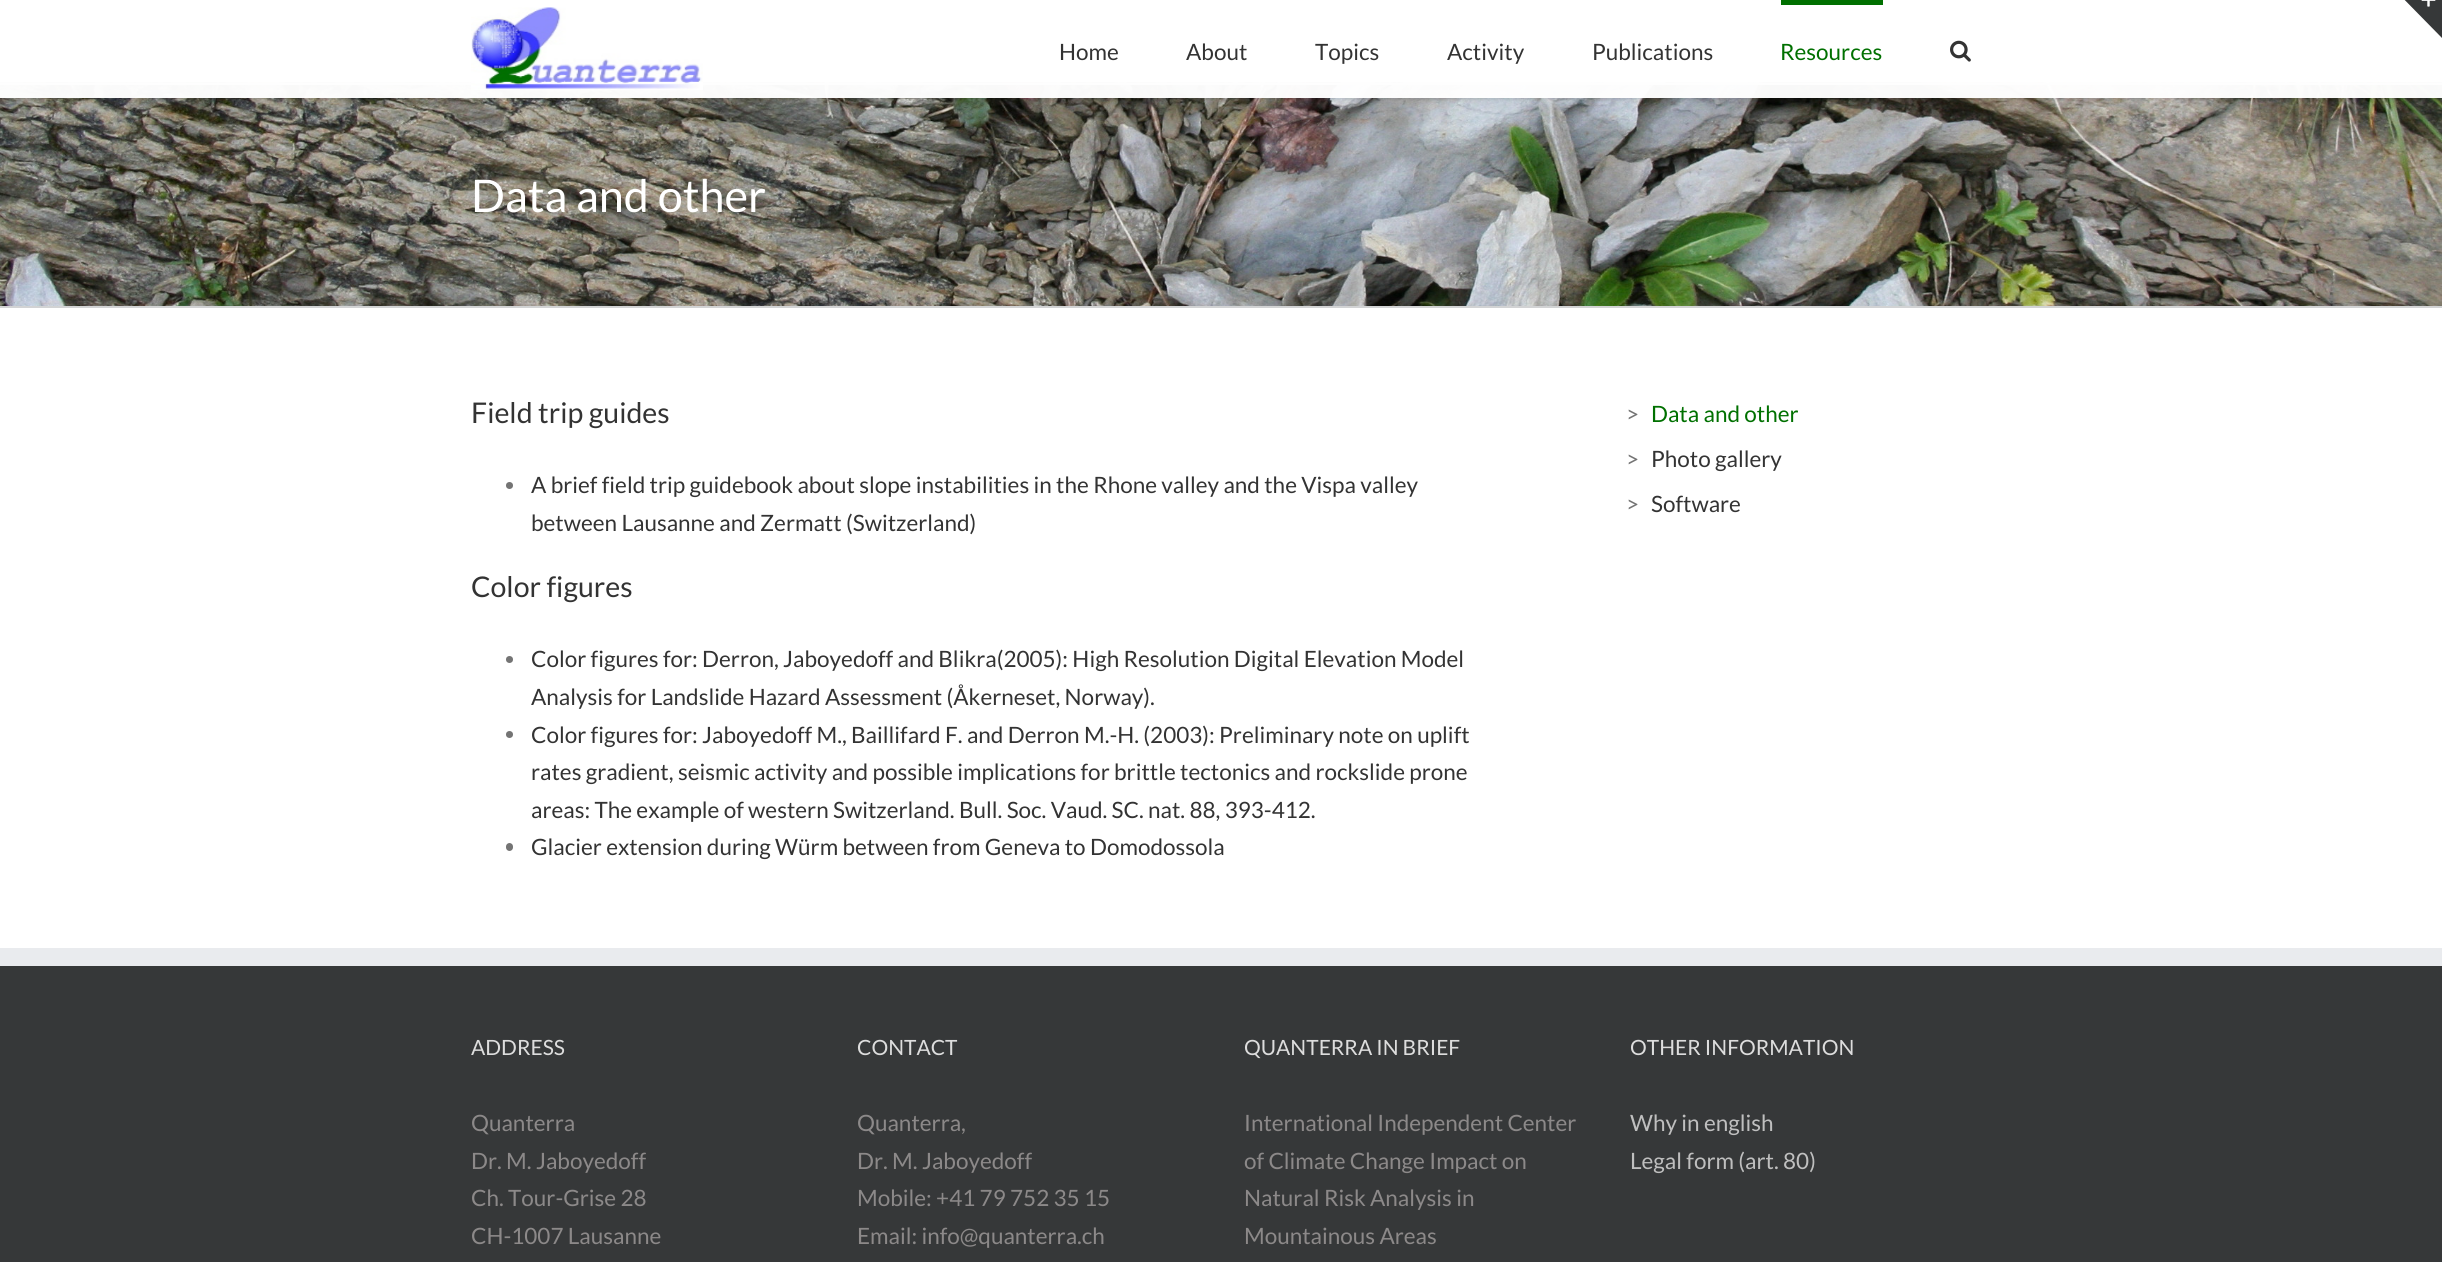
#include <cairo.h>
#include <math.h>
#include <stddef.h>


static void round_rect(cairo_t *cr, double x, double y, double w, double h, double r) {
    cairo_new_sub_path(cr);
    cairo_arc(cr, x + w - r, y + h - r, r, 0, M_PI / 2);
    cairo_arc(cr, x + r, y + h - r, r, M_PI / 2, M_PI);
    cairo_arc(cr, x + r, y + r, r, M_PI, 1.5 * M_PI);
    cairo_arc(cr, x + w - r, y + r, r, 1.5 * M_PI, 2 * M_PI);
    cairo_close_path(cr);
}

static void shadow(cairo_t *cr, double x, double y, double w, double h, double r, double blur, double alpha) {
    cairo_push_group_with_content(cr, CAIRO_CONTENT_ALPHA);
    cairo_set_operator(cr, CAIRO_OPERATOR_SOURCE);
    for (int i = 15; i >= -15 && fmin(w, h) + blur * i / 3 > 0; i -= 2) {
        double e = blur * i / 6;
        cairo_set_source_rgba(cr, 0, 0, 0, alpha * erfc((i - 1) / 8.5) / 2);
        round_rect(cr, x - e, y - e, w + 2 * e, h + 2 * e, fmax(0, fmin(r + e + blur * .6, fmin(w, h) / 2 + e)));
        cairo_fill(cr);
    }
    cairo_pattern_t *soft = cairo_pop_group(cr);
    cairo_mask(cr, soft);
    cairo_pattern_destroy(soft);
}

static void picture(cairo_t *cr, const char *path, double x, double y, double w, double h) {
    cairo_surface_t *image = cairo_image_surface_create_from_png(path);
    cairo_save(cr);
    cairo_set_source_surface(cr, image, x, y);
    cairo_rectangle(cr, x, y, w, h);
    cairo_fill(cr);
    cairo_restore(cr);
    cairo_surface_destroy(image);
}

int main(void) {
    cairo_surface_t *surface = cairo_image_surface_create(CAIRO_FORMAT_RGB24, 2442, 1262);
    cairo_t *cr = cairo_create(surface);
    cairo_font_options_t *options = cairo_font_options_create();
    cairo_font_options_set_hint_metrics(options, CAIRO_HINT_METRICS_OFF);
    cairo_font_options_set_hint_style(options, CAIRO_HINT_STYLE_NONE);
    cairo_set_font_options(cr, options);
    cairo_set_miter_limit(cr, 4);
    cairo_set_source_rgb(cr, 1, 1, 1);
    cairo_paint(cr);
    picture(cr, "img4.png", 0, 82, 2442, 224);
    cairo_set_source_rgb(cr, 0.824, 0.827, 0.831);
    cairo_rectangle(cr, 0, 83, 2442, 2);
    cairo_fill(cr);
    cairo_save(cr);
    cairo_set_fill_rule(cr, CAIRO_FILL_RULE_EVEN_ODD);
    cairo_new_path(cr);
    cairo_move_to(cr, 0, 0);
    cairo_line_to(cr, 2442, 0);
    cairo_line_to(cr, 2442, 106);
    cairo_line_to(cr, 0, 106);
    cairo_close_path(cr);
    cairo_move_to(cr, 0, 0);
    cairo_line_to(cr, 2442, 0);
    cairo_line_to(cr, 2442, 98);
    cairo_line_to(cr, 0, 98);
    cairo_close_path(cr);
    cairo_clip(cr);
    cairo_set_source_rgb(cr, 0, 0, 0);
    shadow(cr, 0, 2, 2442, 97, 0, 2, 0.12);
    cairo_restore(cr);
    cairo_set_source_rgb(cr, 0.212, 0.22, 0.224);
    cairo_new_path(cr);
    cairo_move_to(cr, 2390, -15);
    cairo_line_to(cr, 2442, -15);
    cairo_line_to(cr, 2442, 38);
    cairo_close_path(cr);
    cairo_fill(cr);
    picture(cr, "img1.png", 2421, 0, 15, 7);
    cairo_set_source_rgba(cr, 1, 1, 1, 0.97);
    cairo_rectangle(cr, 0, 82, 2442, 16);
    cairo_fill(cr);
    picture(cr, "img2.png", 471, 7, 232, 83);
    cairo_select_font_face(cr, "Lato", CAIRO_FONT_SLANT_NORMAL, CAIRO_FONT_WEIGHT_NORMAL);
    cairo_set_font_size(cr, 22.5);
    cairo_set_source_rgb(cr, 0.2, 0.2, 0.2);
    cairo_move_to(cr, 1059, 60);
    cairo_show_text(cr, "Home");
    cairo_move_to(cr, 1186, 60);
    cairo_show_text(cr, "About");
    cairo_move_to(cr, 1315, 60);
    cairo_show_text(cr, "Topics");
    cairo_move_to(cr, 1447, 60);
    cairo_show_text(cr, "Activity");
    cairo_move_to(cr, 1592, 60);
    cairo_show_text(cr, "Publications");
    cairo_set_source_rgb(cr, 0, 0.439, 0);
    cairo_rectangle(cr, 1781, 0, 102, 5);
    cairo_fill(cr);
    cairo_move_to(cr, 1780, 60);
    cairo_show_text(cr, "Resources");
    picture(cr, "img3.png", 1950, 40, 21, 22);
    cairo_set_source_rgb(cr, 0.824, 0.827, 0.831);
    cairo_rectangle(cr, 0, 306, 2442, 2);
    cairo_fill(cr);
    cairo_set_font_size(cr, 45);
    cairo_set_source_rgb(cr, 1, 1, 1);
    cairo_move_to(cr, 471, 212);
    cairo_show_text(cr, "Data and other");
    cairo_set_font_size(cr, 28.5);
    cairo_set_source_rgb(cr, 0.2, 0.2, 0.2);
    cairo_move_to(cr, 471, 423);
    cairo_show_text(cr, "Field trip guides");
    cairo_set_source_rgb(cr, 0.455, 0.455, 0.455);
    cairo_new_path(cr);
    cairo_arc(cr, 509.5, 485.5, 3.5, 0, 2 * M_PI);
    cairo_fill(cr);
    cairo_set_font_size(cr, 22.5);
    cairo_set_source_rgb(cr, 0.2, 0.2, 0.2);
    cairo_move_to(cr, 531, 493);
    cairo_show_text(cr, "A brief field trip guidebook about slope instabilities in the Rhone valley and the Vispa valley");
    cairo_move_to(cr, 531, 531);
    cairo_show_text(cr, "between Lausanne and Zermatt (Switzerland)");
    cairo_set_font_size(cr, 28.5);
    cairo_move_to(cr, 471, 597);
    cairo_show_text(cr, "Color figures");
    cairo_set_source_rgb(cr, 0.455, 0.455, 0.455);
    cairo_new_path(cr);
    cairo_arc(cr, 509.5, 659.5, 3.5, 0, 2 * M_PI);
    cairo_fill(cr);
    cairo_set_font_size(cr, 22.5);
    cairo_set_source_rgb(cr, 0.2, 0.2, 0.2);
    cairo_move_to(cr, 531, 667);
    cairo_show_text(cr, "Color figures for: Derron, Jaboyedoff and Blikra(2005): High Resolution Digital Elevation Model");
    cairo_move_to(cr, 531, 705);
    cairo_show_text(cr, "Analysis for Landslide Hazard Assessment (Åkerneset, Norway).");
    cairo_set_source_rgb(cr, 0.455, 0.455, 0.455);
    cairo_new_path(cr);
    cairo_arc(cr, 509.5, 734.5, 3.5, 0, 2 * M_PI);
    cairo_fill(cr);
    cairo_set_source_rgb(cr, 0.2, 0.2, 0.2);
    cairo_move_to(cr, 531, 743);
    cairo_show_text(cr, "Color figures for: Jaboyedoff M., Baillifard F. and Derron M.-H. (2003): Preliminary note on uplift");
    cairo_move_to(cr, 531, 780);
    cairo_show_text(cr, "rates gradient, seismic activity and possible implications for brittle tectonics and rockslide prone");
    cairo_move_to(cr, 531, 818);
    cairo_show_text(cr, "areas: The example of western Switzerland. Bull. Soc. Vaud. SC. nat. 88, 393-412.");
    cairo_set_source_rgb(cr, 0.455, 0.455, 0.455);
    round_rect(cr, 506, 843, 7, 8, 3.5);
    cairo_fill(cr);
    cairo_set_source_rgb(cr, 0.2, 0.2, 0.2);
    cairo_move_to(cr, 531, 855);
    cairo_show_text(cr, "Glacier extension during Würm between from Geneva to Domodossola");
    cairo_set_source_rgb(cr, 0.455, 0.455, 0.455);
    cairo_move_to(cr, 1626, 422);
    cairo_show_text(cr, ">");
    cairo_set_source_rgb(cr, 0, 0.439, 0);
    cairo_move_to(cr, 1651, 422);
    cairo_show_text(cr, "Data and other");
    cairo_set_source_rgb(cr, 0.455, 0.455, 0.455);
    cairo_move_to(cr, 1626, 467);
    cairo_show_text(cr, ">");
    cairo_set_source_rgb(cr, 0.2, 0.2, 0.2);
    cairo_move_to(cr, 1651, 467);
    cairo_show_text(cr, "Photo gallery");
    cairo_set_source_rgb(cr, 0.455, 0.455, 0.455);
    cairo_move_to(cr, 1626, 512);
    cairo_show_text(cr, ">");
    cairo_set_source_rgb(cr, 0.2, 0.2, 0.2);
    cairo_move_to(cr, 1651, 512);
    cairo_show_text(cr, "Software");
    cairo_set_source_rgb(cr, 0.212, 0.22, 0.224);
    cairo_rectangle(cr, 0, 966, 2442, 296);
    cairo_fill(cr);
    cairo_set_source_rgb(cr, 0.914, 0.918, 0.933);
    cairo_rectangle(cr, 0, 948, 2442, 18);
    cairo_fill(cr);
    cairo_set_font_size(cr, 21);
    cairo_set_source_rgb(cr, 0.867, 0.867, 0.867);
    cairo_move_to(cr, 471, 1055);
    cairo_show_text(cr, "ADDRESS");
    cairo_set_font_size(cr, 22.5);
    cairo_set_source_rgb(cr, 0.549, 0.537, 0.537);
    cairo_move_to(cr, 471, 1131);
    cairo_show_text(cr, "Quanterra");
    cairo_move_to(cr, 471, 1169);
    cairo_show_text(cr, "Dr. M. Jaboyedoff");
    cairo_move_to(cr, 471, 1206);
    cairo_show_text(cr, "Ch. Tour-Grise 28");
    cairo_move_to(cr, 471, 1244);
    cairo_show_text(cr, "CH-1007 Lausanne");
    cairo_set_font_size(cr, 21);
    cairo_set_source_rgb(cr, 0.867, 0.867, 0.867);
    cairo_move_to(cr, 857, 1055);
    cairo_show_text(cr, "CONTACT");
    cairo_set_font_size(cr, 22.5);
    cairo_set_source_rgb(cr, 0.549, 0.537, 0.537);
    cairo_move_to(cr, 857, 1131);
    cairo_show_text(cr, "Quanterra,");
    cairo_move_to(cr, 857, 1169);
    cairo_show_text(cr, "Dr. M. Jaboyedoff");
    cairo_move_to(cr, 857, 1206);
    cairo_show_text(cr, "Mobile: +41 79 752 35 15");
    cairo_move_to(cr, 857, 1244);
    cairo_show_text(cr, "Email: info@quanterra.ch");
    cairo_set_font_size(cr, 21);
    cairo_set_source_rgb(cr, 0.867, 0.867, 0.867);
    cairo_move_to(cr, 1244, 1055);
    cairo_show_text(cr, "QUANTERRA IN BRIEF");
    cairo_set_font_size(cr, 22.5);
    cairo_set_source_rgb(cr, 0.549, 0.537, 0.537);
    cairo_move_to(cr, 1244, 1131);
    cairo_show_text(cr, "International Independent Center");
    cairo_move_to(cr, 1244, 1169);
    cairo_show_text(cr, "of Climate Change Impact on");
    cairo_move_to(cr, 1244, 1206);
    cairo_show_text(cr, "Natural Risk Analysis in");
    cairo_move_to(cr, 1244, 1244);
    cairo_show_text(cr, "Mountainous Areas");
    cairo_set_font_size(cr, 21);
    cairo_set_source_rgb(cr, 0.867, 0.867, 0.867);
    cairo_move_to(cr, 1630, 1055);
    cairo_show_text(cr, "OTHER INFORMATION");
    cairo_set_font_size(cr, 22.5);
    cairo_set_source_rgb(cr, 0.749, 0.749, 0.749);
    cairo_move_to(cr, 1630, 1131);
    cairo_show_text(cr, "Why in english");
    cairo_move_to(cr, 1630, 1169);
    cairo_show_text(cr, "Legal form (art. 80)");
    cairo_surface_write_to_png(surface, "page.png");
    cairo_font_options_destroy(options);
    cairo_destroy(cr);
    cairo_surface_destroy(surface);
    return 0;
}
